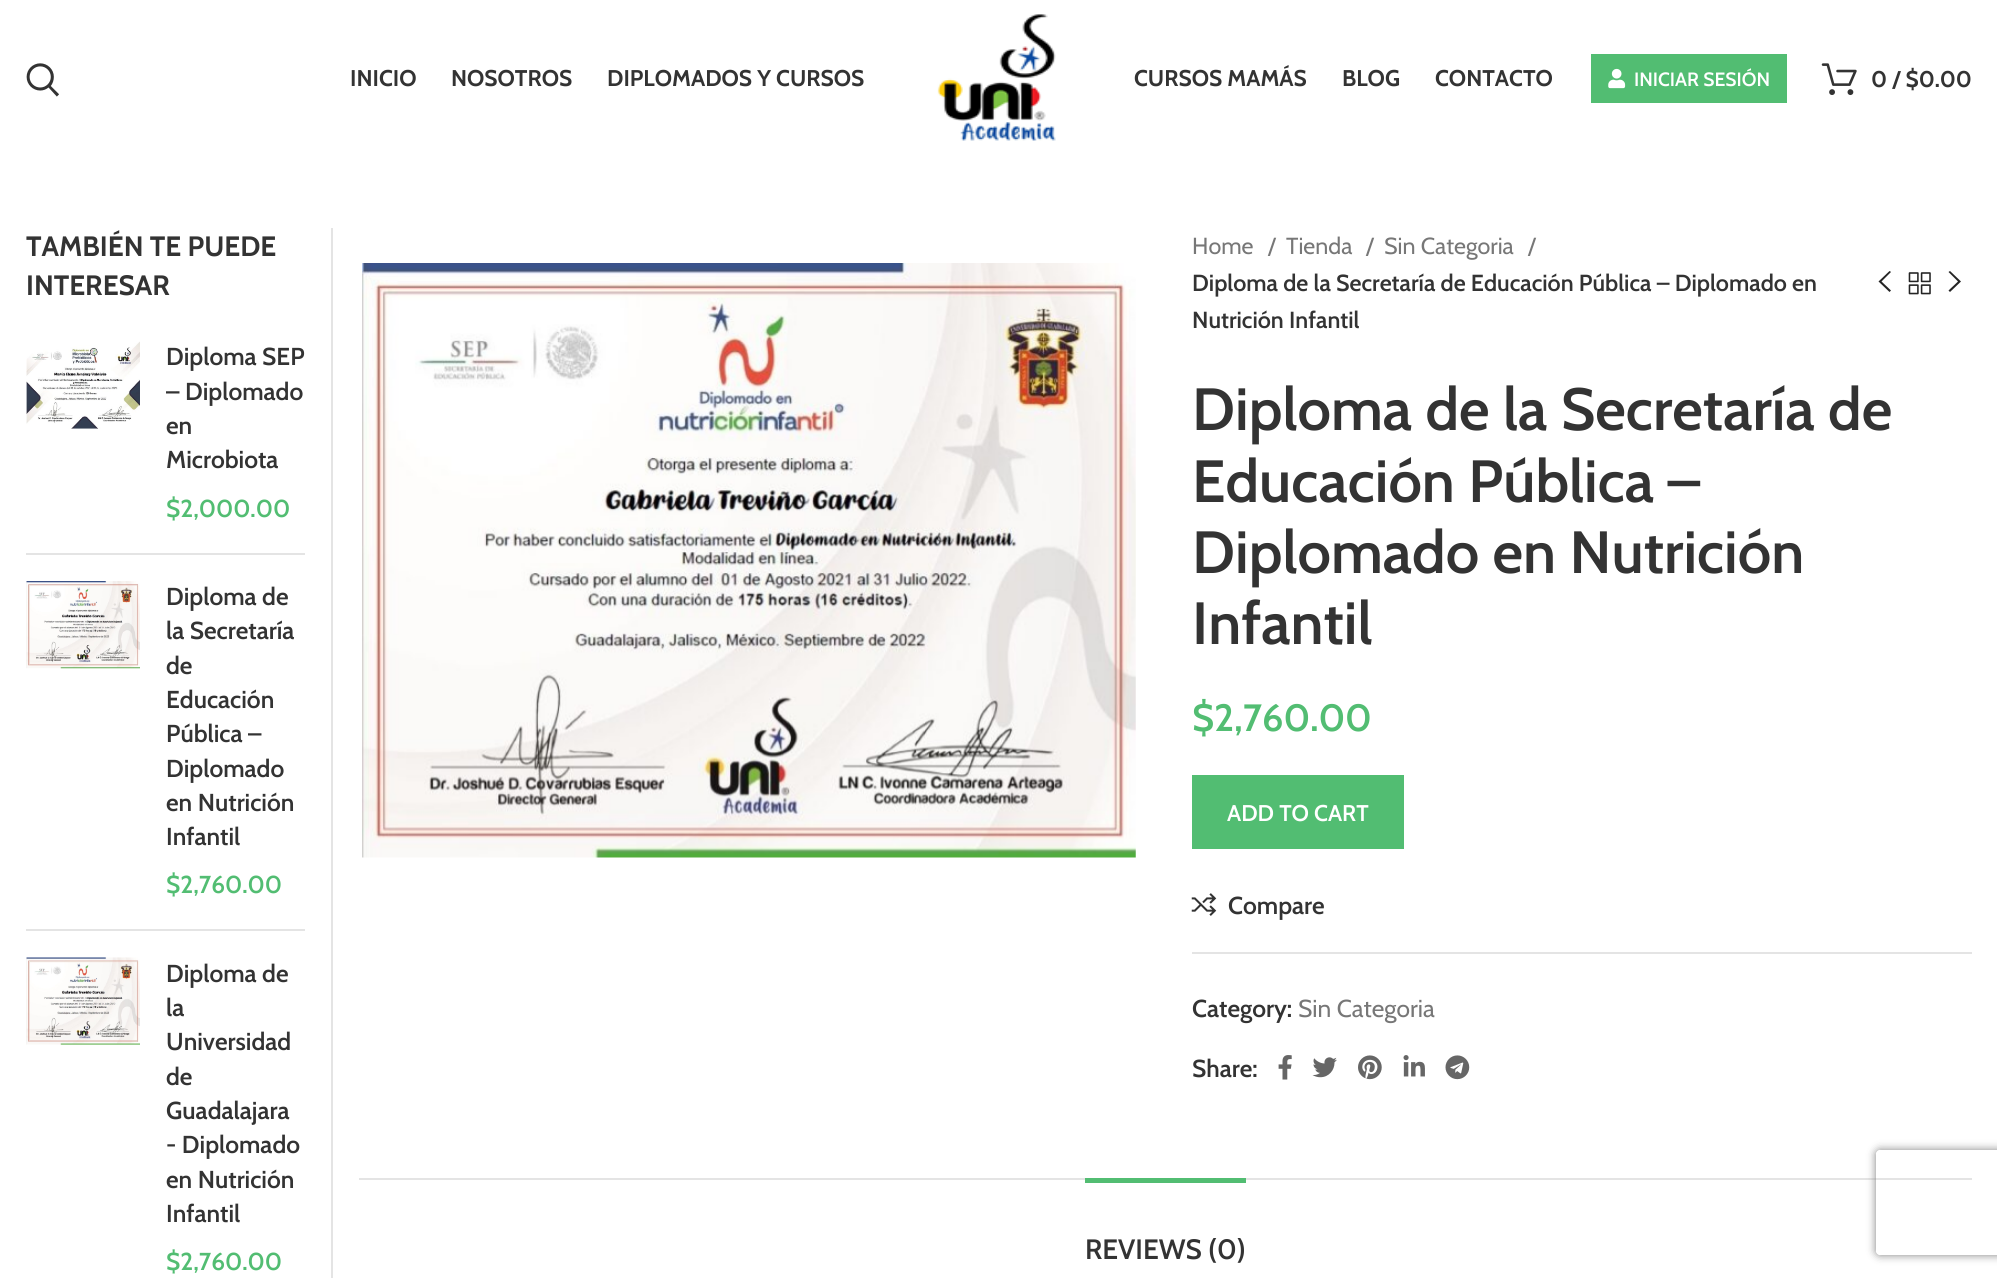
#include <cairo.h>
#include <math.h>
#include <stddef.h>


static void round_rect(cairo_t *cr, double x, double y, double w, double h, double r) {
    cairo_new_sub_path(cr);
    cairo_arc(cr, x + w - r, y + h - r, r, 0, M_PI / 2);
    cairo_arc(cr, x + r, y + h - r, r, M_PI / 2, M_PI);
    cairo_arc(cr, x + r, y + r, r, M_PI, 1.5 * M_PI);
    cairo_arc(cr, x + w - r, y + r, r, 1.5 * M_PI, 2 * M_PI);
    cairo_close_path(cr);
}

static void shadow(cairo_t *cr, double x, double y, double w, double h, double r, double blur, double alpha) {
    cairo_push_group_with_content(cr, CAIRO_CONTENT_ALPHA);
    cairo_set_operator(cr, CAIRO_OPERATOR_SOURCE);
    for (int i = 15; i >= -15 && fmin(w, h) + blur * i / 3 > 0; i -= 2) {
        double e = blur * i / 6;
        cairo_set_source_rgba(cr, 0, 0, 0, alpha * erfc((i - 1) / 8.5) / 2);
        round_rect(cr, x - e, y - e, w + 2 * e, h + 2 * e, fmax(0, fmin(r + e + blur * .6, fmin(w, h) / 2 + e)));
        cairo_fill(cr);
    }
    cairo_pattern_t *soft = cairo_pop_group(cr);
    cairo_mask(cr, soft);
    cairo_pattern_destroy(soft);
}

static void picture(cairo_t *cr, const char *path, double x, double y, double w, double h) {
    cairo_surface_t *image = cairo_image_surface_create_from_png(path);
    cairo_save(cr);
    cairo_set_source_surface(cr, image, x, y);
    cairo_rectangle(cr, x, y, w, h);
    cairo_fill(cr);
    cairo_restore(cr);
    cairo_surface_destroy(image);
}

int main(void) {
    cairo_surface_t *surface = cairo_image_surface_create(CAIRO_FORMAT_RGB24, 1997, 1278);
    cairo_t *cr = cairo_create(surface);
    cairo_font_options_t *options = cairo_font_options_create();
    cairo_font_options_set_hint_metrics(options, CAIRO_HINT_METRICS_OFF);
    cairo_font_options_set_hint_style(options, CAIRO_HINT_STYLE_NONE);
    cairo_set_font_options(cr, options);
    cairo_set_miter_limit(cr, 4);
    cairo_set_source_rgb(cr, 1, 1, 1);
    cairo_paint(cr);
    picture(cr, "img1.png", 26, 63, 33, 34);
    cairo_select_font_face(cr, "Cabin", CAIRO_FONT_SLANT_NORMAL, CAIRO_FONT_WEIGHT_BOLD);
    cairo_set_font_size(cr, 22.75);
    cairo_set_source_rgb(cr, 0.2, 0.2, 0.2);
    cairo_move_to(cr, 350, 86);
    cairo_show_text(cr, "INICIO");
    cairo_move_to(cr, 451, 86);
    cairo_show_text(cr, "NOSOTROS");
    cairo_move_to(cr, 607, 86);
    cairo_show_text(cr, "DIPLOMADOS Y CURSOS");
    picture(cr, "img2.png", 937, 14, 119, 127);
    cairo_move_to(cr, 1134, 86);
    cairo_show_text(cr, "CURSOS MAMÁS");
    cairo_move_to(cr, 1342, 86);
    cairo_show_text(cr, "BLOG");
    cairo_move_to(cr, 1435, 86);
    cairo_show_text(cr, "CONTACTO");
    cairo_set_source_rgb(cr, 0.322, 0.741, 0.447);
    cairo_rectangle(cr, 1591, 54, 196, 49);
    cairo_fill(cr);
    picture(cr, "img3.png", 1608, 68, 18, 21);
    cairo_select_font_face(cr, "Cabin SemiBold", CAIRO_FONT_SLANT_NORMAL, CAIRO_FONT_WEIGHT_NORMAL);
    cairo_set_font_size(cr, 19.25);
    cairo_set_source_rgb(cr, 1, 1, 1);
    cairo_move_to(cr, 1634, 86);
    cairo_show_text(cr, "INICIAR SESIÓN");
    picture(cr, "img4.png", 1821, 63, 36, 33);
    cairo_select_font_face(cr, "Cabin", CAIRO_FONT_SLANT_NORMAL, CAIRO_FONT_WEIGHT_BOLD);
    cairo_set_font_size(cr, 22.75);
    cairo_set_source_rgb(cr, 0.2, 0.2, 0.2);
    cairo_move_to(cr, 1871, 87);
    cairo_show_text(cr, "0 / $0.00");
    cairo_set_source_rgb(cr, 0.894, 0.894, 0.894);
    cairo_rectangle(cr, 331, 228, 2, 1050);
    cairo_fill(cr);
    cairo_set_font_size(cr, 28);
    cairo_set_source_rgb(cr, 0.2, 0.2, 0.2);
    cairo_move_to(cr, 26, 256);
    cairo_show_text(cr, "TAMBIÉN TE PUEDE");
    cairo_move_to(cr, 26, 295);
    cairo_show_text(cr, "INTERESAR");
    cairo_set_source_rgb(cr, 0.894, 0.894, 0.894);
    cairo_rectangle(cr, 26, 553, 279, 2);
    cairo_fill(cr);
    picture(cr, "img5.png", 26, 341, 114, 88);
    cairo_select_font_face(cr, "Cabin SemiBold", CAIRO_FONT_SLANT_NORMAL, CAIRO_FONT_WEIGHT_NORMAL);
    cairo_set_font_size(cr, 24.5);
    cairo_set_source_rgb(cr, 0.2, 0.2, 0.2);
    cairo_move_to(cr, 166, 365);
    cairo_show_text(cr, "Diploma SEP");
    cairo_move_to(cr, 166, 400);
    cairo_show_text(cr, "– Diplomado");
    cairo_move_to(cr, 166, 434);
    cairo_show_text(cr, "en");
    cairo_move_to(cr, 166, 468);
    cairo_show_text(cr, "Microbiota");
    cairo_set_source_rgb(cr, 0.322, 0.741, 0.447);
    cairo_move_to(cr, 166, 517);
    cairo_show_text(cr, "$2,000.00");
    cairo_set_source_rgb(cr, 0.894, 0.894, 0.894);
    cairo_rectangle(cr, 26, 929, 279, 2);
    cairo_fill(cr);
    picture(cr, "img6.png", 26, 581, 114, 88);
    cairo_set_source_rgb(cr, 0.2, 0.2, 0.2);
    cairo_move_to(cr, 166, 605);
    cairo_show_text(cr, "Diploma de");
    cairo_move_to(cr, 166, 639);
    cairo_show_text(cr, "la Secretaría");
    cairo_move_to(cr, 166, 674);
    cairo_show_text(cr, "de");
    cairo_move_to(cr, 166, 708);
    cairo_show_text(cr, "Educación");
    cairo_move_to(cr, 166, 742);
    cairo_show_text(cr, "Pública –");
    cairo_move_to(cr, 166, 777);
    cairo_show_text(cr, "Diplomado");
    cairo_move_to(cr, 166, 811);
    cairo_show_text(cr, "en Nutrición");
    cairo_move_to(cr, 166, 845);
    cairo_show_text(cr, "Infantil");
    cairo_set_source_rgb(cr, 0.322, 0.741, 0.447);
    cairo_move_to(cr, 166, 893);
    cairo_show_text(cr, "$2,760.00");
    picture(cr, "img7.png", 26, 957, 114, 88);
    cairo_set_source_rgb(cr, 0.2, 0.2, 0.2);
    cairo_move_to(cr, 166, 982);
    cairo_show_text(cr, "Diploma de");
    cairo_move_to(cr, 166, 1016);
    cairo_show_text(cr, "la");
    cairo_move_to(cr, 166, 1050);
    cairo_show_text(cr, "Universidad");
    cairo_move_to(cr, 166, 1085);
    cairo_show_text(cr, "de");
    cairo_move_to(cr, 166, 1119);
    cairo_show_text(cr, "Guadalajara");
    cairo_move_to(cr, 166, 1153);
    cairo_show_text(cr, "- Diplomado");
    cairo_move_to(cr, 166, 1188);
    cairo_show_text(cr, "en Nutrición");
    cairo_move_to(cr, 166, 1222);
    cairo_show_text(cr, "Infantil");
    cairo_set_source_rgb(cr, 0.322, 0.741, 0.447);
    cairo_move_to(cr, 166, 1270);
    cairo_show_text(cr, "$2,760.00");
    picture(cr, "img8.png", 362, 263, 774, 595);
    cairo_select_font_face(cr, "Cabin", CAIRO_FONT_SLANT_NORMAL, CAIRO_FONT_WEIGHT_NORMAL);
    cairo_set_font_size(cr, 23.25);
    cairo_set_source_rgb(cr, 0.467, 0.467, 0.467);
    cairo_move_to(cr, 1192, 254);
    cairo_show_text(cr, "Home");
    cairo_move_to(cr, 1268, 254);
    cairo_show_text(cr, "/");
    cairo_move_to(cr, 1286, 254);
    cairo_show_text(cr, "Tienda");
    cairo_move_to(cr, 1366, 254);
    cairo_show_text(cr, "/");
    cairo_move_to(cr, 1384, 254);
    cairo_show_text(cr, "Sin Categoria");
    cairo_move_to(cr, 1528, 254);
    cairo_show_text(cr, "/");
    cairo_select_font_face(cr, "Cabin SemiBold", CAIRO_FONT_SLANT_NORMAL, CAIRO_FONT_WEIGHT_NORMAL);
    cairo_set_source_rgb(cr, 0.2, 0.2, 0.2);
    cairo_move_to(cr, 1192, 291);
    cairo_show_text(cr, "Diploma de la Secretaría de Educación Pública – Diplomado en");
    cairo_move_to(cr, 1192, 328);
    cairo_show_text(cr, "Nutrición Infantil");
    cairo_set_source_rgb(cr, 0.141, 0.141, 0.141);
    cairo_new_path(cr);
    cairo_move_to(cr, 1891, 272);
    cairo_line_to(cr, 1881.5, 281.5);
    cairo_line_to(cr, 1891, 290.5);
    cairo_line_to(cr, 1889.5, 292);
    cairo_line_to(cr, 1878.5, 281.5);
    cairo_line_to(cr, 1889.5, 271);
    cairo_close_path(cr);
    cairo_fill(cr);
    picture(cr, "img9.png", 1908, 272, 23, 23);
    cairo_new_path(cr);
    cairo_move_to(cr, 1950, 271);
    cairo_line_to(cr, 1961, 281.5);
    cairo_line_to(cr, 1950, 292);
    cairo_line_to(cr, 1948.5, 290.5);
    cairo_line_to(cr, 1958, 281.5);
    cairo_line_to(cr, 1948.5, 272);
    cairo_close_path(cr);
    cairo_fill(cr);
    cairo_set_font_size(cr, 59.5);
    cairo_set_source_rgb(cr, 0.2, 0.2, 0.2);
    cairo_move_to(cr, 1192, 430);
    cairo_show_text(cr, "Diploma de la Secretaría de");
    cairo_move_to(cr, 1192, 502);
    cairo_show_text(cr, "Educación Pública –");
    cairo_move_to(cr, 1192, 573);
    cairo_show_text(cr, "Diplomado en Nutrición");
    cairo_move_to(cr, 1192, 644);
    cairo_show_text(cr, "Infantil");
    cairo_set_font_size(cr, 38);
    cairo_set_source_rgb(cr, 0.322, 0.741, 0.447);
    cairo_move_to(cr, 1192, 731);
    cairo_show_text(cr, "$2,760.00");
    cairo_rectangle(cr, 1192, 775, 212, 74);
    cairo_fill(cr);
    cairo_set_font_size(cr, 22.75);
    cairo_set_source_rgb(cr, 1, 1, 1);
    cairo_move_to(cr, 1227, 821);
    cairo_show_text(cr, "ADD TO CART");
    picture(cr, "img10.png", 1191, 893, 26, 23);
    cairo_set_font_size(cr, 24.5);
    cairo_set_source_rgb(cr, 0.2, 0.2, 0.2);
    cairo_move_to(cr, 1228, 914);
    cairo_show_text(cr, "Compare");
    cairo_set_source_rgb(cr, 0.894, 0.894, 0.894);
    cairo_rectangle(cr, 1192, 952, 780, 2);
    cairo_fill(cr);
    cairo_set_source_rgb(cr, 0.2, 0.2, 0.2);
    cairo_move_to(cr, 1192, 1017);
    cairo_show_text(cr, "Category:");
    cairo_select_font_face(cr, "Cabin", CAIRO_FONT_SLANT_NORMAL, CAIRO_FONT_WEIGHT_NORMAL);
    cairo_set_source_rgb(cr, 0.467, 0.467, 0.467);
    cairo_move_to(cr, 1298, 1017);
    cairo_show_text(cr, "Sin Categoria");
    cairo_select_font_face(cr, "Cabin SemiBold", CAIRO_FONT_SLANT_NORMAL, CAIRO_FONT_WEIGHT_NORMAL);
    cairo_set_source_rgb(cr, 0.2, 0.2, 0.2);
    cairo_move_to(cr, 1192, 1077);
    cairo_show_text(cr, "Share:");
    picture(cr, "img11.png", 1278, 1055, 14, 25);
    picture(cr, "img12.png", 1312, 1057, 25, 21);
    picture(cr, "img13.png", 1358, 1055, 24, 25);
    picture(cr, "img14.png", 1403, 1055, 22, 22);
    picture(cr, "img15.png", 1445, 1055, 25, 25);
    cairo_set_source_rgb(cr, 0.894, 0.894, 0.894);
    cairo_rectangle(cr, 359, 1178, 1613, 2);
    cairo_fill(cr);
    cairo_set_source_rgb(cr, 0.322, 0.741, 0.447);
    cairo_rectangle(cr, 1085, 1178, 161, 5);
    cairo_fill(cr);
    cairo_set_font_size(cr, 28);
    cairo_set_source_rgb(cr, 0.2, 0.2, 0.2);
    cairo_move_to(cr, 1085, 1259);
    cairo_show_text(cr, "REVIEWS (0)");
    cairo_save(cr);
    cairo_set_fill_rule(cr, CAIRO_FILL_RULE_EVEN_ODD);
    cairo_new_path(cr);
    cairo_move_to(cr, 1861, 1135);
    cairo_line_to(cr, 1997, 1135);
    cairo_line_to(cr, 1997, 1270);
    cairo_line_to(cr, 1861, 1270);
    cairo_close_path(cr);
    cairo_move_to(cr, 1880, 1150);
    cairo_line_to(cr, 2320, 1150);
    cairo_curve_to(cr, 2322, 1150, 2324, 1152, 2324, 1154);
    cairo_line_to(cr, 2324, 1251);
    cairo_curve_to(cr, 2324, 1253, 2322, 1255, 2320, 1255);
    cairo_line_to(cr, 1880, 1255);
    cairo_curve_to(cr, 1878, 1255, 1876, 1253, 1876, 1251);
    cairo_line_to(cr, 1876, 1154);
    cairo_curve_to(cr, 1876, 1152, 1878, 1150, 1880, 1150);
    cairo_close_path(cr);
    cairo_clip(cr);
    cairo_set_source_rgb(cr, 0.502, 0.502, 0.502);
    shadow(cr, 1876, 1150, 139, 105, 4, 4.5, 1);
    cairo_restore(cr);
    cairo_surface_write_to_png(surface, "page.png");
    cairo_font_options_destroy(options);
    cairo_destroy(cr);
    cairo_surface_destroy(surface);
    return 0;
}
